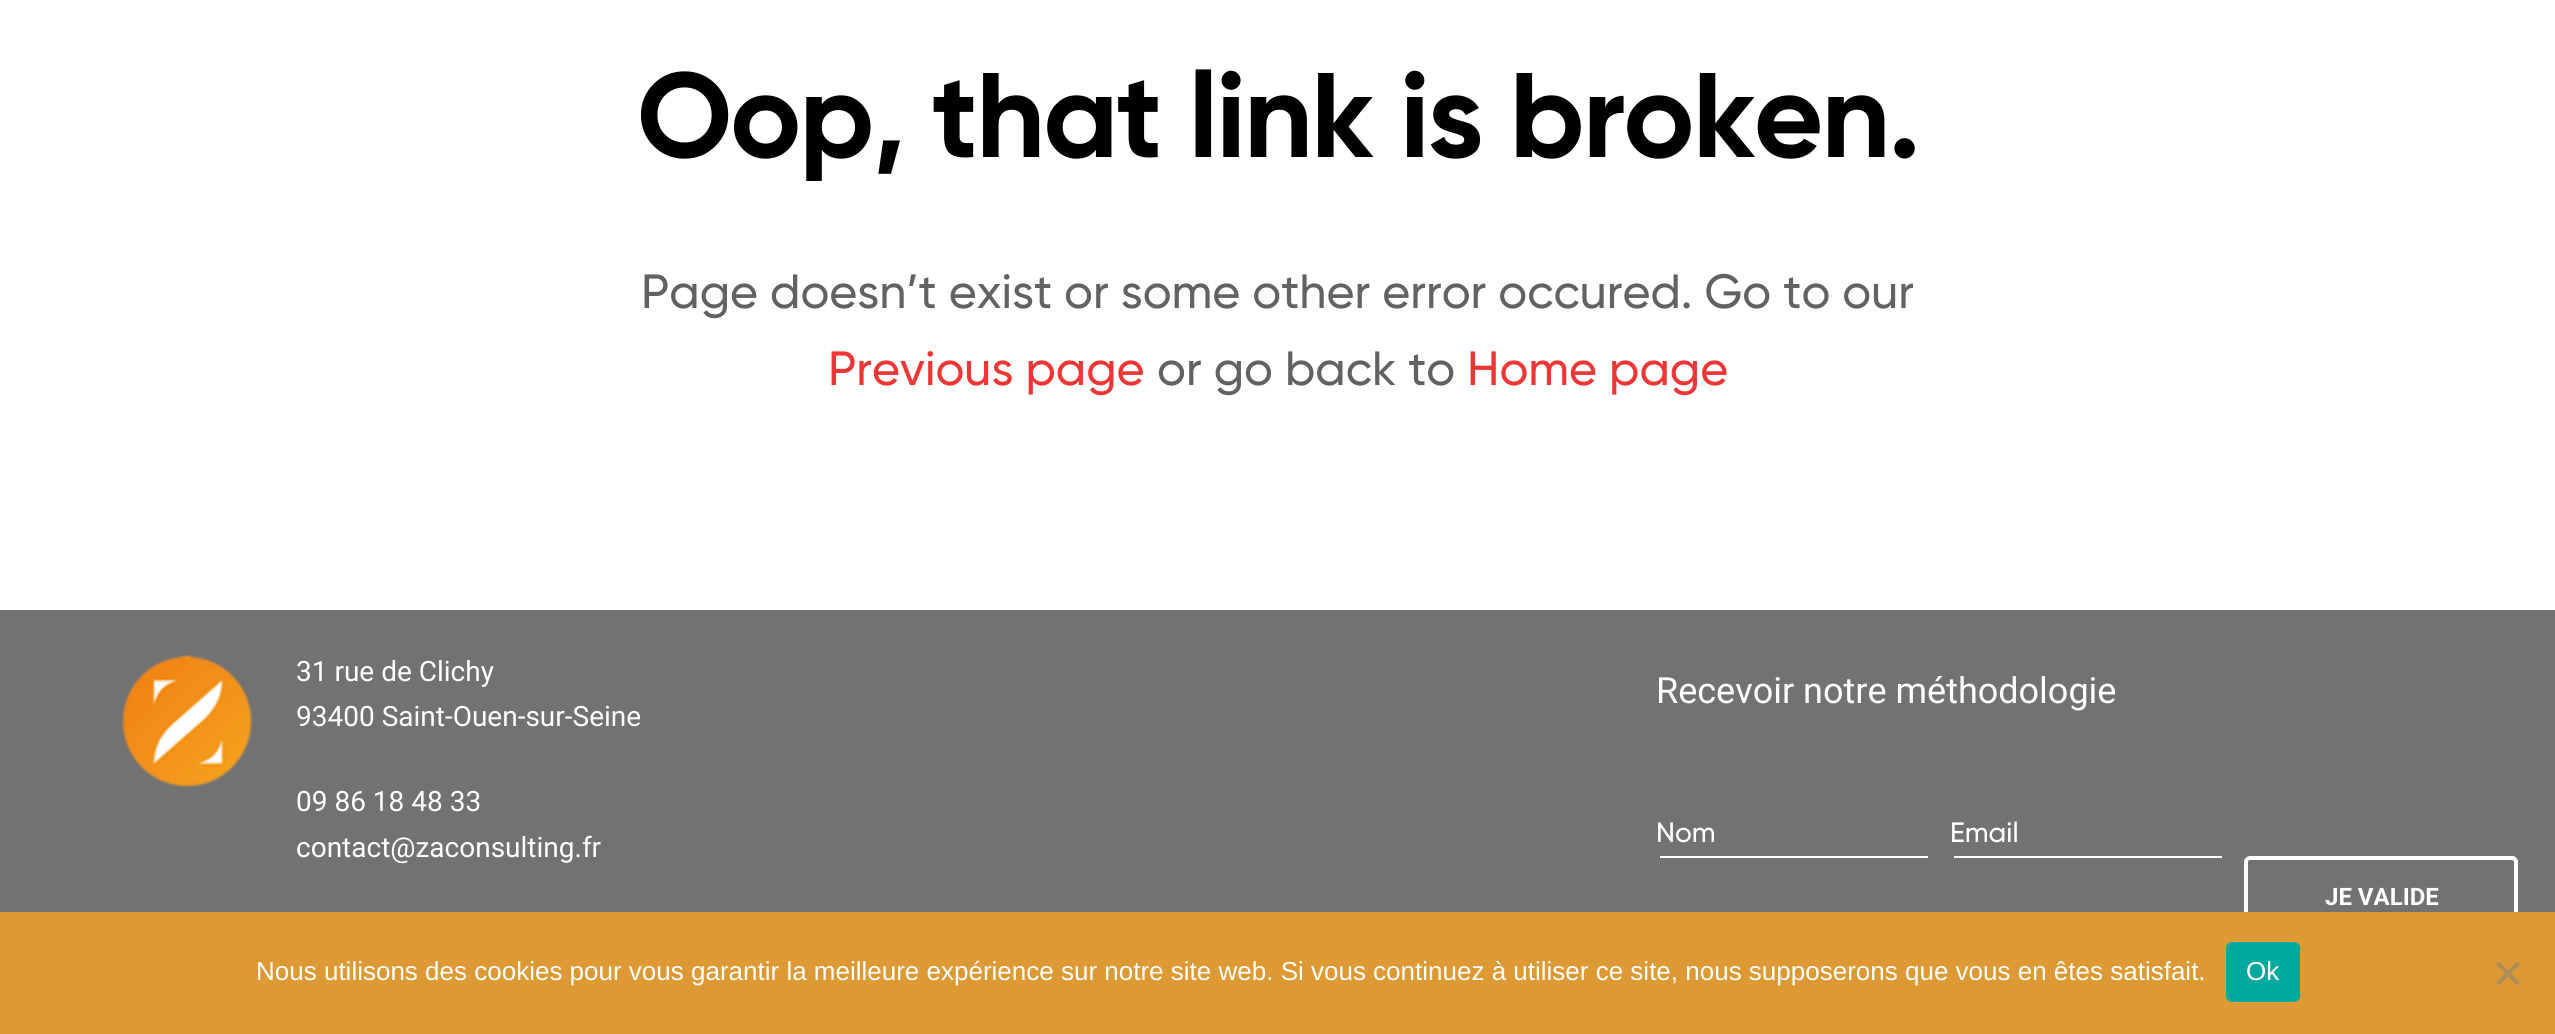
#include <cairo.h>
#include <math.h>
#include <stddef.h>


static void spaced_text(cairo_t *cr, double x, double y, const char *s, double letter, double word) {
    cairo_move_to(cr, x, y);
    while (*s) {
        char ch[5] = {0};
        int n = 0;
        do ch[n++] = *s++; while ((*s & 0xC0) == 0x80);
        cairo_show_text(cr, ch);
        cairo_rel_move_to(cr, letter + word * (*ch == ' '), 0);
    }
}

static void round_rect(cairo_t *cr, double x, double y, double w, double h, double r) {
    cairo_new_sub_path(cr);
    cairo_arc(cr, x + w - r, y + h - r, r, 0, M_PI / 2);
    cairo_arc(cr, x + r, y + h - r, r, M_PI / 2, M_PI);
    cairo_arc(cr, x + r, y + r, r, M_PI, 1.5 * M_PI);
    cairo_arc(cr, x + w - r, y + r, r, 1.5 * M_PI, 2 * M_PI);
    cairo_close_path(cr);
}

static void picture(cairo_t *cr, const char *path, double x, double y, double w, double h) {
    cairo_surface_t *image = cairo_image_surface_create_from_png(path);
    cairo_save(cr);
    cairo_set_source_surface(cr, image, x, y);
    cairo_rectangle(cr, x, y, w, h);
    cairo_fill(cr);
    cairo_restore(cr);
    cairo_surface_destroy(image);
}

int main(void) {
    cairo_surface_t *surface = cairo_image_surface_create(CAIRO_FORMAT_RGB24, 2555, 1034);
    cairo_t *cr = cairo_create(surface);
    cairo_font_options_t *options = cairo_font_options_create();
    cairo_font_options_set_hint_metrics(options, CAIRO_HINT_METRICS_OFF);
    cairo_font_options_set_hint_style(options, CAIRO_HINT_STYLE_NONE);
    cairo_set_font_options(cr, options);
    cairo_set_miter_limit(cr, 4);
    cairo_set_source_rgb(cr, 1, 1, 1);
    cairo_paint(cr);
    cairo_select_font_face(cr, "Gilroy", CAIRO_FONT_SLANT_NORMAL, CAIRO_FONT_WEIGHT_BOLD);
    cairo_set_font_size(cr, 120);
    cairo_set_source_rgb(cr, 0, 0, 0);
    spaced_text(cr, 637, 157, "Oop, that link is broken.", -2, 0);
    cairo_select_font_face(cr, "Gilroy Medium", CAIRO_FONT_SLANT_NORMAL, CAIRO_FONT_WEIGHT_NORMAL);
    cairo_set_font_size(cr, 48);
    cairo_set_source_rgb(cr, 0.384, 0.384, 0.384);
    cairo_move_to(cr, 641, 308);
    cairo_show_text(cr, "Page doesn’t exist or some other error occured. Go to our");
    cairo_set_source_rgb(cr, 0.937, 0.212, 0.212);
    cairo_move_to(cr, 828, 385);
    cairo_show_text(cr, "Previous page");
    cairo_set_source_rgb(cr, 0.384, 0.384, 0.384);
    cairo_move_to(cr, 1157, 385);
    cairo_show_text(cr, "or go back to");
    cairo_set_source_rgb(cr, 0.937, 0.212, 0.212);
    cairo_move_to(cr, 1467, 385);
    cairo_show_text(cr, "Home page");
    cairo_set_source_rgb(cr, 0.447, 0.447, 0.447);
    cairo_rectangle(cr, 0, 610, 2555, 302);
    cairo_fill(cr);
    picture(cr, "img1.png", 121, 655, 132, 133);
    cairo_select_font_face(cr, "Roboto", CAIRO_FONT_SLANT_NORMAL, CAIRO_FONT_WEIGHT_NORMAL);
    cairo_set_font_size(cr, 28);
    cairo_set_source_rgb(cr, 1, 1, 1);
    cairo_move_to(cr, 296, 681);
    cairo_show_text(cr, "31 rue de Clichy");
    cairo_move_to(cr, 296, 726);
    cairo_show_text(cr, "93400 Saint-Ouen-sur-Seine");
    cairo_move_to(cr, 296, 811);
    cairo_show_text(cr, "09 86 18 48 33");
    cairo_move_to(cr, 296, 857);
    cairo_show_text(cr, "contact@zaconsulting.fr");
    cairo_set_font_size(cr, 36);
    cairo_move_to(cr, 1656, 703);
    cairo_show_text(cr, "Recevoir notre méthodologie");
    cairo_select_font_face(cr, "Gilroy Medium", CAIRO_FONT_SLANT_NORMAL, CAIRO_FONT_WEIGHT_NORMAL);
    cairo_set_font_size(cr, 28);
    cairo_move_to(cr, 1656, 842);
    cairo_show_text(cr, "Nom");
    cairo_rectangle(cr, 1660, 856, 268, 2);
    cairo_fill(cr);
    cairo_move_to(cr, 1950, 842);
    cairo_show_text(cr, "Email");
    cairo_rectangle(cr, 1954, 856, 268, 2);
    cairo_fill(cr);
    round_rect(cr, 2246, 858, 270, 76, 4);
    cairo_set_line_width(cr, 4);
    cairo_stroke(cr);
    cairo_select_font_face(cr, "Roboto", CAIRO_FONT_SLANT_NORMAL, CAIRO_FONT_WEIGHT_BOLD);
    cairo_set_font_size(cr, 24);
    cairo_move_to(cr, 2325, 905);
    cairo_show_text(cr, "JE VALIDE");
    cairo_set_source_rgb(cr, 0.867, 0.6, 0.2);
    cairo_rectangle(cr, 0, 912, 2555, 122);
    cairo_fill(cr);
    cairo_select_font_face(cr, "Liberation Sans", CAIRO_FONT_SLANT_NORMAL, CAIRO_FONT_WEIGHT_NORMAL);
    cairo_set_font_size(cr, 26);
    cairo_set_source_rgb(cr, 1, 1, 1);
    cairo_move_to(cr, 256, 980);
    cairo_show_text(cr, "Nous utilisons des cookies pour vous garantir la meilleure expérience sur notre site web. Si vous continuez à utiliser ce site, nous supposerons que vous en êtes satisfait.");
    cairo_set_source_rgb(cr, 0, 0.663, 0.616);
    round_rect(cr, 2226, 942, 74, 60, 6);
    cairo_fill(cr);
    cairo_set_source_rgb(cr, 1, 1, 1);
    cairo_move_to(cr, 2246, 980);
    cairo_show_text(cr, "Ok");
    cairo_set_source_rgb(cr, 0.686, 0.553, 0.353);
    cairo_new_path(cr);
    cairo_move_to(cr, 2517, 961.5);
    cairo_line_to(cr, 2520, 964.5);
    cairo_line_to(cr, 2499, 985.5);
    cairo_line_to(cr, 2496, 982.5);
    cairo_close_path(cr);
    cairo_fill(cr);
    cairo_new_path(cr);
    cairo_move_to(cr, 2496, 964.5);
    cairo_line_to(cr, 2499, 961.5);
    cairo_line_to(cr, 2520, 982.5);
    cairo_line_to(cr, 2517, 985.5);
    cairo_close_path(cr);
    cairo_fill(cr);
    cairo_surface_write_to_png(surface, "page.png");
    cairo_font_options_destroy(options);
    cairo_destroy(cr);
    cairo_surface_destroy(surface);
    return 0;
}
